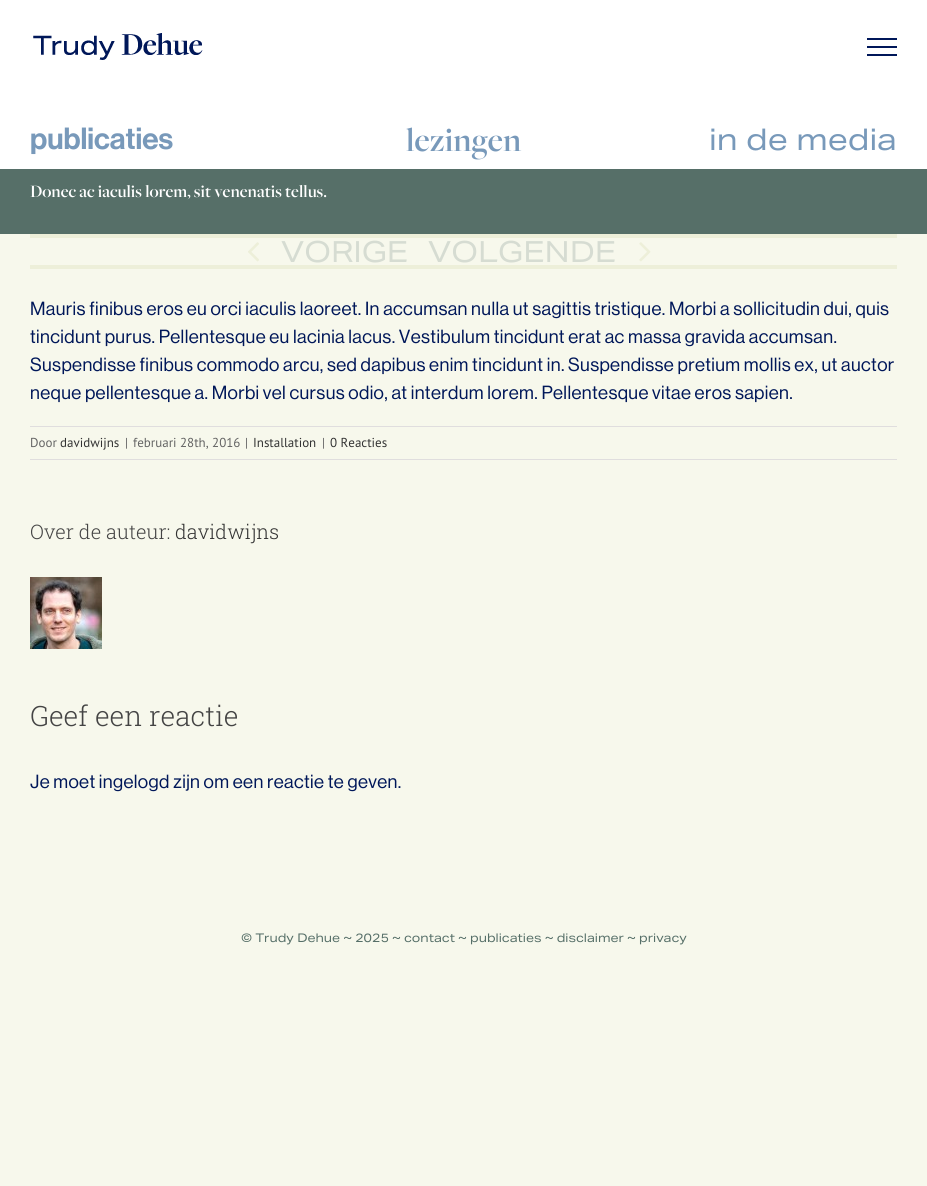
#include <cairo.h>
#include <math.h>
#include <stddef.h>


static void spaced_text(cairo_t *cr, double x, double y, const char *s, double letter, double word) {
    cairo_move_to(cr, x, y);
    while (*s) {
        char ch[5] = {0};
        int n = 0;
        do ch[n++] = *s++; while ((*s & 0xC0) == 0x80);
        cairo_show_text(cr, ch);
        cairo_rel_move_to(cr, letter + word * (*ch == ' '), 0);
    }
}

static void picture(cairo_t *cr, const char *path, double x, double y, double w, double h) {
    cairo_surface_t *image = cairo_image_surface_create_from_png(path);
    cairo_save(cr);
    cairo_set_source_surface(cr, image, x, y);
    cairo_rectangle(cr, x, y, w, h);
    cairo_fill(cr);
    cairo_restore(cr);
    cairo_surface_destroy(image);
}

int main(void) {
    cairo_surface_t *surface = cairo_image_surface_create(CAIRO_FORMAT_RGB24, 927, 1186);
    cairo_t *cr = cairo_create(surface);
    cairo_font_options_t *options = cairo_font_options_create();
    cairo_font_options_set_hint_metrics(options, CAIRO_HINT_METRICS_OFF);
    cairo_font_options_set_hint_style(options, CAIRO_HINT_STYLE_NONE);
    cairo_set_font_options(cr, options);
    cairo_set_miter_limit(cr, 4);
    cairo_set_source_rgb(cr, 0.965, 0.969, 0.925);
    cairo_paint(cr);
    cairo_set_source_rgb(cr, 1, 1, 1);
    cairo_rectangle(cr, 0, 0, 927, 169);
    cairo_fill(cr);
    picture(cr, "img1.png", 33, 33, 170, 27);
    cairo_set_source_rgb(cr, 0, 0.09, 0.349);
    cairo_rectangle(cr, 867, 38, 30, 2);
    cairo_fill(cr);
    cairo_rectangle(cr, 867, 46, 30, 2);
    cairo_fill(cr);
    cairo_rectangle(cr, 867, 54, 30, 2);
    cairo_fill(cr);
    cairo_select_font_face(cr, "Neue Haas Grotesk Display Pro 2 Medium", CAIRO_FONT_SLANT_NORMAL, CAIRO_FONT_WEIGHT_NORMAL);
    cairo_set_font_size(cr, 30);
    cairo_set_source_rgb(cr, 0.471, 0.6, 0.729);
    cairo_move_to(cr, 30, 149);
    cairo_show_text(cr, "publicaties");
    cairo_select_font_face(cr, "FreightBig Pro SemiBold", CAIRO_FONT_SLANT_NORMAL, CAIRO_FONT_WEIGHT_NORMAL);
    cairo_set_font_size(cr, 35);
    cairo_move_to(cr, 406, 151);
    cairo_show_text(cr, "lezingen");
    cairo_select_font_face(cr, "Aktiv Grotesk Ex", CAIRO_FONT_SLANT_NORMAL, CAIRO_FONT_WEIGHT_NORMAL);
    cairo_set_font_size(cr, 30);
    cairo_move_to(cr, 709, 150);
    cairo_show_text(cr, "in de media");
    cairo_set_source_rgb(cr, 0.337, 0.435, 0.408);
    cairo_rectangle(cr, 0, 169, 927, 65);
    cairo_fill(cr);
    cairo_select_font_face(cr, "FreightBig Pro SemiBold", CAIRO_FONT_SLANT_NORMAL, CAIRO_FONT_WEIGHT_NORMAL);
    cairo_set_font_size(cr, 18);
    cairo_set_source_rgb(cr, 1, 1, 1);
    cairo_move_to(cr, 30, 197);
    cairo_show_text(cr, "Donec ac iaculis lorem, sit venenatis tellus.");
    cairo_set_source_rgb(cr, 0.929, 0.937, 0.851);
    cairo_rectangle(cr, 30, 234, 867, 4);
    cairo_fill(cr);
    cairo_rectangle(cr, 30, 265, 867, 4);
    cairo_fill(cr);
    picture(cr, "img2.png", 248, 242, 11, 20);
    cairo_select_font_face(cr, "Aktiv Grotesk Ex", CAIRO_FONT_SLANT_NORMAL, CAIRO_FONT_WEIGHT_NORMAL);
    cairo_set_font_size(cr, 29.25);
    cairo_set_source_rgb(cr, 0.839, 0.863, 0.824);
    cairo_move_to(cr, 281, 262);
    cairo_show_text(cr, "VORIGE");
    cairo_move_to(cr, 428, 262);
    cairo_show_text(cr, "VOLGENDE");
    picture(cr, "img3.png", 639, 242, 12, 20);
    cairo_select_font_face(cr, "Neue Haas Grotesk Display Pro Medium", CAIRO_FONT_SLANT_NORMAL, CAIRO_FONT_WEIGHT_NORMAL);
    cairo_set_font_size(cr, 18.65);
    cairo_set_source_rgb(cr, 0, 0.09, 0.349);
    spaced_text(cr, 30, 315, "Mauris finibus eros eu orci iaculis laoreet. In accumsan nulla ut sagittis tristique. Morbi a sollicitudin dui, quis", 0.37, 0);
    spaced_text(cr, 30, 343, "tincidunt purus. Pellentesque eu lacinia lacus. Vestibulum tincidunt erat ac massa gravida accumsan.", 0.37, 0);
    spaced_text(cr, 30, 371, "Suspendisse finibus commodo arcu, sed dapibus enim tincidunt in. Suspendisse pretium mollis ex, ut auctor", 0.37, 0);
    spaced_text(cr, 30, 399, "neque pellentesque a. Morbi vel cursus odio, at interdum lorem. Pellentesque vitae eros sapien.", 0.37, 0);
    cairo_set_source_rgb(cr, 0.878, 0.871, 0.871);
    cairo_rectangle(cr, 30, 426, 867, 1);
    cairo_fill(cr);
    cairo_rectangle(cr, 30, 459, 867, 1);
    cairo_fill(cr);
    cairo_select_font_face(cr, "PT Sans", CAIRO_FONT_SLANT_NORMAL, CAIRO_FONT_WEIGHT_NORMAL);
    cairo_set_font_size(cr, 13);
    cairo_set_source_rgb(cr, 0.392, 0.392, 0.392);
    cairo_move_to(cr, 30, 447);
    cairo_show_text(cr, "Door");
    cairo_set_source_rgb(cr, 0.2, 0.2, 0.2);
    cairo_move_to(cr, 60, 447);
    cairo_show_text(cr, "davidwijns");
    cairo_set_source_rgb(cr, 0.392, 0.392, 0.392);
    cairo_move_to(cr, 125, 447);
    cairo_show_text(cr, "|");
    cairo_move_to(cr, 133, 447);
    cairo_show_text(cr, "februari 28th, 2016");
    cairo_move_to(cr, 245, 447);
    cairo_show_text(cr, "|");
    cairo_set_source_rgb(cr, 0.2, 0.2, 0.2);
    cairo_move_to(cr, 253, 447);
    cairo_show_text(cr, "Installation");
    cairo_set_source_rgb(cr, 0.392, 0.392, 0.392);
    cairo_move_to(cr, 322, 447);
    cairo_show_text(cr, "|");
    cairo_set_source_rgb(cr, 0.2, 0.2, 0.2);
    cairo_move_to(cr, 330, 447);
    cairo_show_text(cr, "0 Reacties");
    cairo_select_font_face(cr, "Roboto Slab Light", CAIRO_FONT_SLANT_NORMAL, CAIRO_FONT_WEIGHT_NORMAL);
    cairo_set_font_size(cr, 20);
    cairo_set_source_rgb(cr, 0.267, 0.267, 0.267);
    cairo_move_to(cr, 30, 539);
    cairo_show_text(cr, "Over de auteur:");
    cairo_set_source_rgb(cr, 0.2, 0.2, 0.2);
    cairo_move_to(cr, 175, 539);
    cairo_show_text(cr, "davidwijns");
    picture(cr, "img4.png", 30, 577, 72, 72);
    cairo_set_font_size(cr, 28);
    cairo_set_source_rgb(cr, 0.267, 0.267, 0.267);
    cairo_move_to(cr, 30, 726);
    cairo_show_text(cr, "Geef een reactie");
    cairo_select_font_face(cr, "Neue Haas Grotesk Display Pro Medium", CAIRO_FONT_SLANT_NORMAL, CAIRO_FONT_WEIGHT_NORMAL);
    cairo_set_font_size(cr, 18.65);
    cairo_set_source_rgb(cr, 0, 0.09, 0.349);
    spaced_text(cr, 30, 788, "Je moet ingelogd zijn om een reactie te geven.", 0.37, 0);
    cairo_select_font_face(cr, "Aktiv Grotesk Ex", CAIRO_FONT_SLANT_NORMAL, CAIRO_FONT_WEIGHT_NORMAL);
    cairo_set_font_size(cr, 12);
    cairo_set_source_rgb(cr, 0.337, 0.435, 0.408);
    cairo_move_to(cr, 241, 942);
    cairo_show_text(cr, "© Trudy Dehue ~ 2025 ~ contact ~ publicaties ~ disclaimer ~ privacy");
    cairo_surface_write_to_png(surface, "page.png");
    cairo_font_options_destroy(options);
    cairo_destroy(cr);
    cairo_surface_destroy(surface);
    return 0;
}
